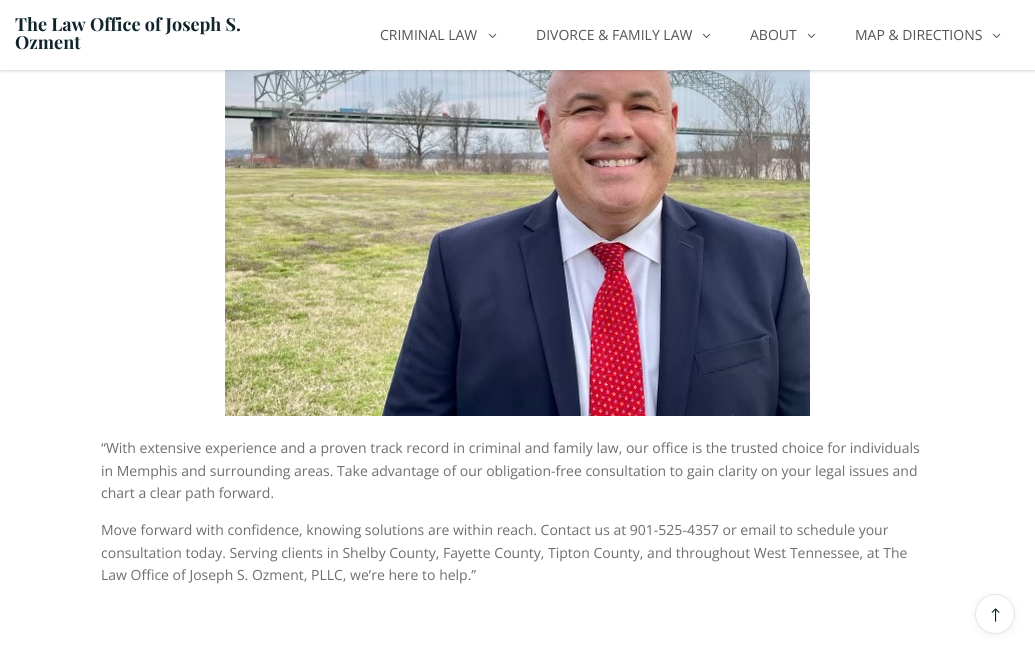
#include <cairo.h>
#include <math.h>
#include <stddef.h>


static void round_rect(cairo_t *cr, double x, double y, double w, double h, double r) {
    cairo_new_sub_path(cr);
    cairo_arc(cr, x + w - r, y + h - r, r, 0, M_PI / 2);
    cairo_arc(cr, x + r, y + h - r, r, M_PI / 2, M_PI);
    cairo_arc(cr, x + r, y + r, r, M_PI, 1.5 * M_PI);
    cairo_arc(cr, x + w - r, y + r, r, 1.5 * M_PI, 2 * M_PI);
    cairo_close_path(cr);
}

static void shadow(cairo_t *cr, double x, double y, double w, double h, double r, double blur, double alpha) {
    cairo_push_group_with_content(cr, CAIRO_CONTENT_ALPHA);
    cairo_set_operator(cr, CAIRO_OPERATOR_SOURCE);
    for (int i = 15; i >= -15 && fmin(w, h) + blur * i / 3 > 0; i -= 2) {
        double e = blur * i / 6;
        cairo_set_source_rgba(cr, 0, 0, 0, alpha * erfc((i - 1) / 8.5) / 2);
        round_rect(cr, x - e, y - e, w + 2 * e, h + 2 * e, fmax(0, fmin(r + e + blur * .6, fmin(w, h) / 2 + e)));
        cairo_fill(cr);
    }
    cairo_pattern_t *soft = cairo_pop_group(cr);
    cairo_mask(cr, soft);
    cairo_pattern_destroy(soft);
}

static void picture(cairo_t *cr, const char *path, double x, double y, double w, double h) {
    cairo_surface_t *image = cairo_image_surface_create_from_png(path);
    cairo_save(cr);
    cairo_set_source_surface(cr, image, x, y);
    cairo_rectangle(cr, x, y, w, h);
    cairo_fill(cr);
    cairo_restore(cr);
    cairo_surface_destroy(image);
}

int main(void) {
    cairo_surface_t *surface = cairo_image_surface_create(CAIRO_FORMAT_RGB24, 1035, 654);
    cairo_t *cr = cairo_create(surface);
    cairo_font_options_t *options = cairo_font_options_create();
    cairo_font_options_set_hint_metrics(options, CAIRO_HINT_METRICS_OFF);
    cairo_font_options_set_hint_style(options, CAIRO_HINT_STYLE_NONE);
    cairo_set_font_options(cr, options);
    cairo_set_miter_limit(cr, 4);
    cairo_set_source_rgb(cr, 1, 1, 1);
    cairo_paint(cr);
    picture(cr, "img2.png", 225, 70, 585, 346);
    cairo_set_source_rgb(cr, 0.129, 0.129, 0.129);
    shadow(cr, 0, 1, 1035, 70, 0, 1.5, 0.2);
    cairo_set_source_rgb(cr, 1, 1, 1);
    cairo_rectangle(cr, 0, 0, 1035, 70);
    cairo_fill(cr);
    cairo_select_font_face(cr, "Playfair Display", CAIRO_FONT_SLANT_NORMAL, CAIRO_FONT_WEIGHT_BOLD);
    cairo_set_font_size(cr, 18);
    cairo_set_source_rgb(cr, 0.063, 0.141, 0.169);
    cairo_move_to(cr, 15, 31);
    cairo_show_text(cr, "The Law Office of Joseph S.");
    cairo_move_to(cr, 15, 49);
    cairo_show_text(cr, "Ozment");
    cairo_select_font_face(cr, "Open Sans", CAIRO_FONT_SLANT_NORMAL, CAIRO_FONT_WEIGHT_NORMAL);
    cairo_set_font_size(cr, 14);
    cairo_set_source_rgb(cr, 0.329, 0.329, 0.329);
    cairo_move_to(cr, 380, 40);
    cairo_show_text(cr, "CRIMINAL LAW");
    picture(cr, "img1.png", 488, 33, 9, 5);
    cairo_move_to(cr, 536, 40);
    cairo_show_text(cr, "DIVORCE & FAMILY LAW");
    picture(cr, "img1.png", 702, 33, 9, 5);
    cairo_move_to(cr, 750, 40);
    cairo_show_text(cr, "ABOUT");
    picture(cr, "img1.png", 807, 33, 9, 5);
    cairo_move_to(cr, 855, 40);
    cairo_show_text(cr, "MAP & DIRECTIONS");
    picture(cr, "img1.png", 992, 33, 9, 5);
    cairo_set_source_rgb(cr, 0.431, 0.431, 0.431);
    cairo_move_to(cr, 101, 453);
    cairo_show_text(cr, "“With extensive experience and a proven track record in criminal and family law, our office is the trusted choice for individuals");
    cairo_move_to(cr, 101, 476);
    cairo_show_text(cr, "in Memphis and surrounding areas. Take advantage of our obligation-free consultation to gain clarity on your legal issues and");
    cairo_move_to(cr, 101, 498);
    cairo_show_text(cr, "chart a clear path forward.");
    cairo_move_to(cr, 101, 535);
    cairo_show_text(cr, "Move forward with confidence, knowing solutions are within reach. Contact us at 901-525-4357 or email to schedule your");
    cairo_move_to(cr, 101, 558);
    cairo_show_text(cr, "consultation today. Serving clients in Shelby County, Fayette County, Tipton County, and throughout West Tennessee, at The");
    cairo_move_to(cr, 101, 580);
    cairo_show_text(cr, "Law Office of Joseph S. Ozment, PLLC, we’re here to help.”");
    cairo_set_source_rgb(cr, 0, 0, 0);
    shadow(cr, 975, 596, 40, 40, 20, 4, 0.05);
    cairo_set_source_rgb(cr, 1, 1, 1);
    cairo_arc(cr, 995, 614, 19.5, 0, 2 * M_PI);
    cairo_fill_preserve(cr);
    cairo_set_source_rgb(cr, 0.898, 0.898, 0.898);
    cairo_set_line_width(cr, 1);
    cairo_stroke(cr);
    picture(cr, "img3.png", 991, 608, 9, 14);
    cairo_surface_write_to_png(surface, "page.png");
    cairo_font_options_destroy(options);
    cairo_destroy(cr);
    cairo_surface_destroy(surface);
    return 0;
}
